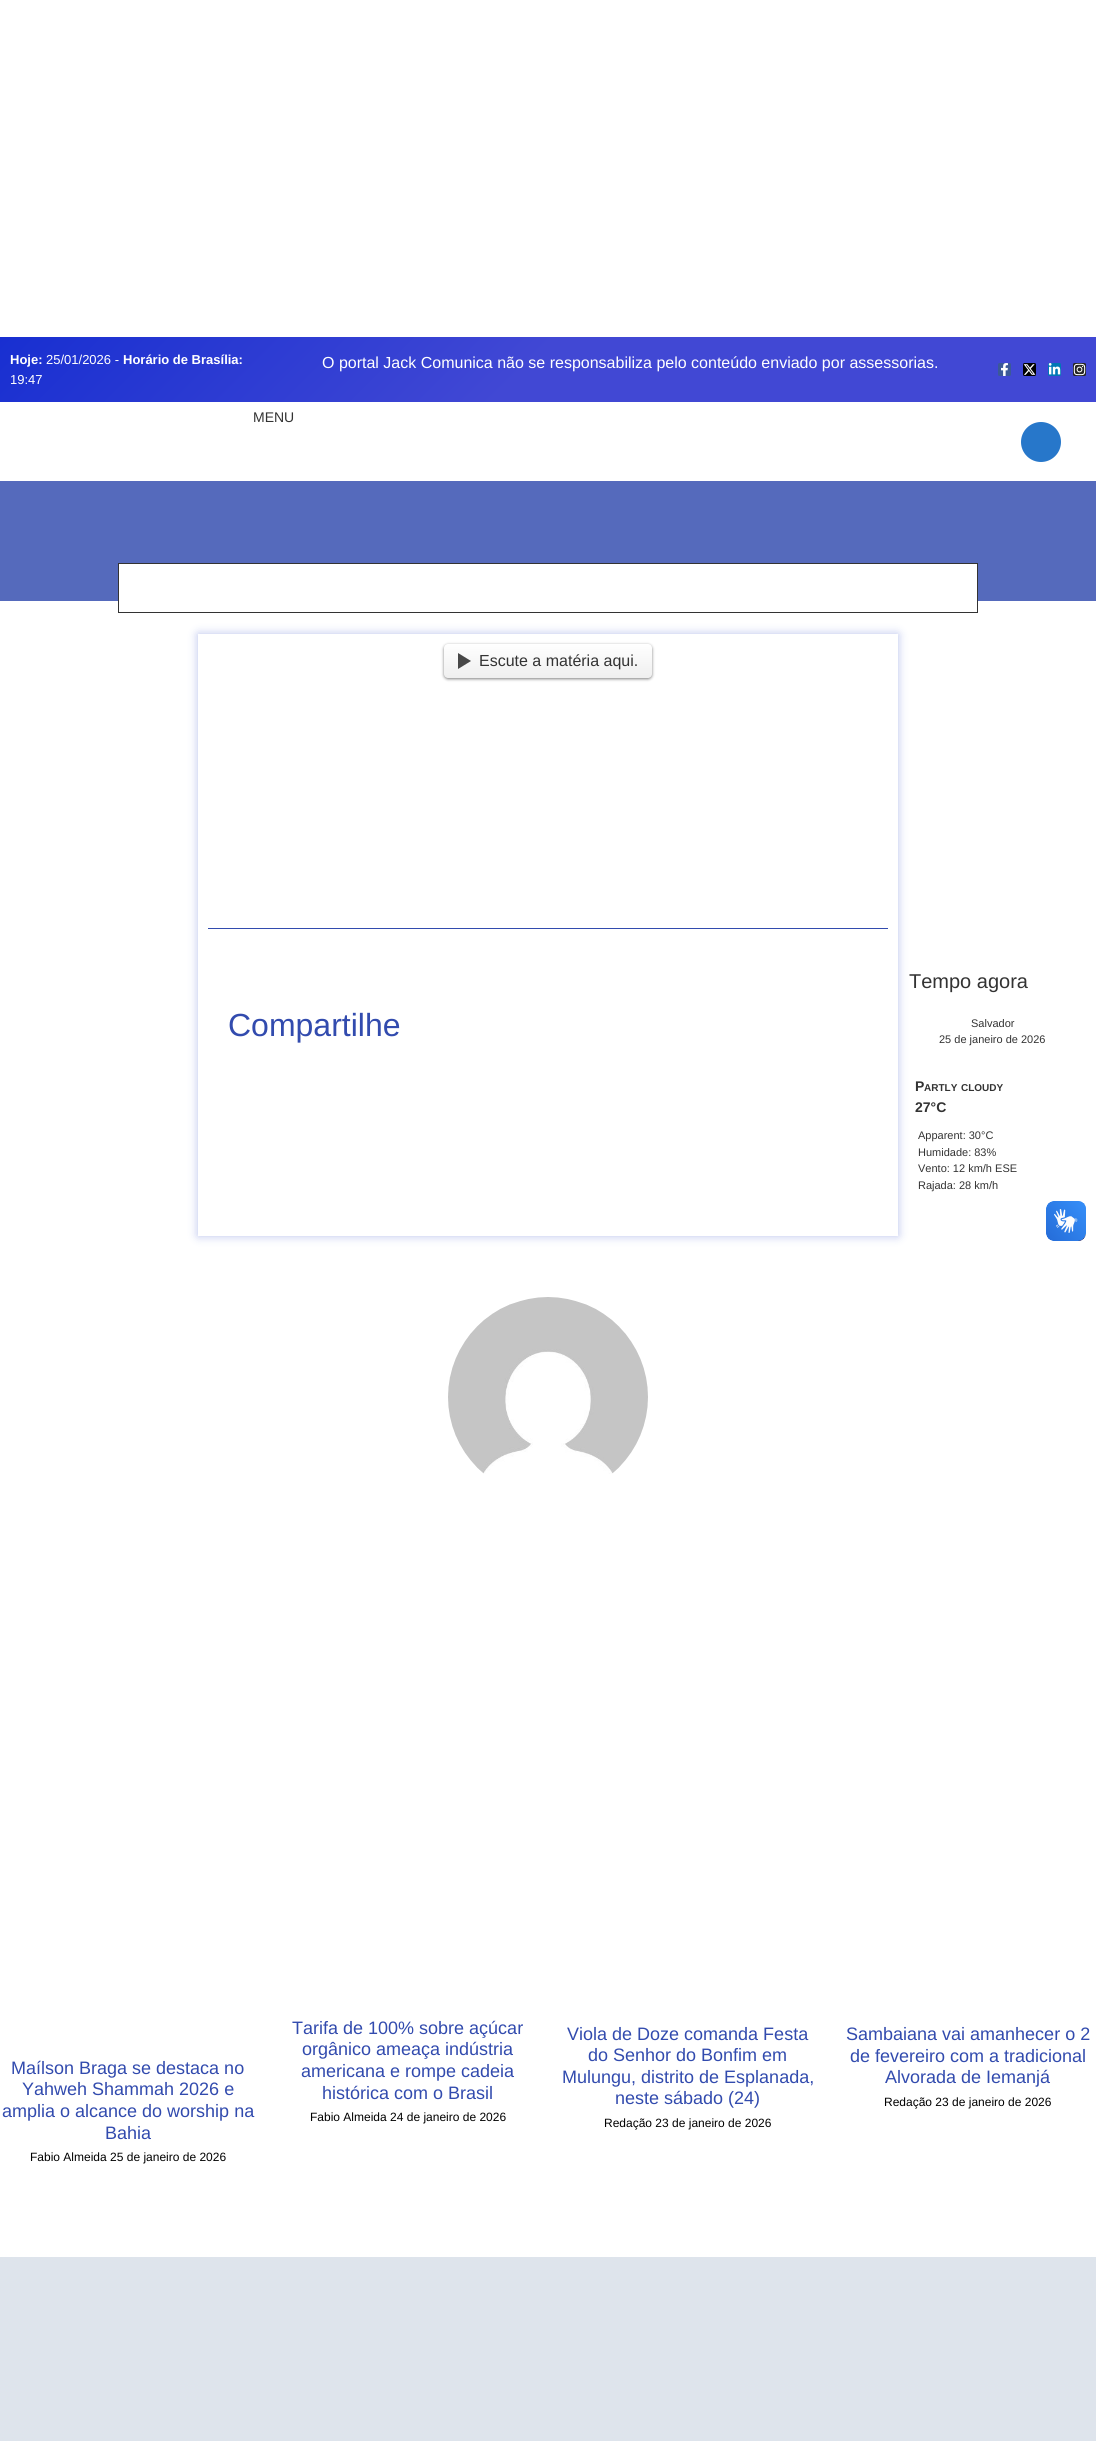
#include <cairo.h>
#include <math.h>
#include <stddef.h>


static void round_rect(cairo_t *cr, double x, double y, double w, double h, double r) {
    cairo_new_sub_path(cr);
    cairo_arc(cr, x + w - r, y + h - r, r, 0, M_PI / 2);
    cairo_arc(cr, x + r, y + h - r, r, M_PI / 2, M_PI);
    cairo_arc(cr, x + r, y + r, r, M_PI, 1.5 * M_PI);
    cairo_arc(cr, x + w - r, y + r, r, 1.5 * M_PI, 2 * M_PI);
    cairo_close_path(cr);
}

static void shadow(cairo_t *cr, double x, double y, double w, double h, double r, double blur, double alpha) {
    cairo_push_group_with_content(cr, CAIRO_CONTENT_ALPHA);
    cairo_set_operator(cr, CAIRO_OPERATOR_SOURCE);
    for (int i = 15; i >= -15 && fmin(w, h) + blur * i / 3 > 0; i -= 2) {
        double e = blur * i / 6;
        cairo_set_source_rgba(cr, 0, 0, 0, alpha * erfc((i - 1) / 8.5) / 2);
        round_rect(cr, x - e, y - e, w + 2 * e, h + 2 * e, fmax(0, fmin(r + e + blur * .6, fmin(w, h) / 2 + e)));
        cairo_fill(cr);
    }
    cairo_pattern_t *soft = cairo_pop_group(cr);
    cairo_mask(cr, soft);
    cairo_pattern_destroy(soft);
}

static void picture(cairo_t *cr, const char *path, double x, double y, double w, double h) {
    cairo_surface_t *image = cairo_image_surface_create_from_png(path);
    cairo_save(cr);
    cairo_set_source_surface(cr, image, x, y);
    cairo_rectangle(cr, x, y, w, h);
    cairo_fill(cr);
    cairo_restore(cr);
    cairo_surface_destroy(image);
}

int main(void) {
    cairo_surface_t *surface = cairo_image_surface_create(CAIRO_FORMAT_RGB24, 1096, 2441);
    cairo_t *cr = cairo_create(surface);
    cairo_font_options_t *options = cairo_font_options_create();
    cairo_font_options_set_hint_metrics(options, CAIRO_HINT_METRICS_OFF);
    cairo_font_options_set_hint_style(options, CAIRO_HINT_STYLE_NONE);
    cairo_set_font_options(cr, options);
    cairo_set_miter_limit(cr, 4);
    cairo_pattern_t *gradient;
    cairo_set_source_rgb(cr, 1, 1, 1);
    cairo_paint(cr);
    gradient = cairo_pattern_create_linear(258, 79, 838, 660);
    cairo_pattern_add_color_stop_rgba(gradient, 0, 0.094, 0.184, 0.82, 1);
    cairo_pattern_add_color_stop_rgba(gradient, 0.48, 0.255, 0.282, 0.831, 1);
    cairo_set_source(cr, gradient);
    cairo_pattern_destroy(gradient);
    cairo_rectangle(cr, 0, 337, 1096, 65);
    cairo_fill(cr);
    cairo_select_font_face(cr, "Liberation Sans", CAIRO_FONT_SLANT_NORMAL, CAIRO_FONT_WEIGHT_BOLD);
    cairo_set_font_size(cr, 13);
    cairo_set_source_rgb(cr, 1, 1, 1);
    cairo_move_to(cr, 10, 364);
    cairo_show_text(cr, "Hoje:");
    cairo_select_font_face(cr, "Liberation Sans", CAIRO_FONT_SLANT_NORMAL, CAIRO_FONT_WEIGHT_NORMAL);
    cairo_move_to(cr, 46, 364);
    cairo_show_text(cr, "25/01/2026 -");
    cairo_select_font_face(cr, "Liberation Sans", CAIRO_FONT_SLANT_NORMAL, CAIRO_FONT_WEIGHT_BOLD);
    cairo_move_to(cr, 123, 364);
    cairo_show_text(cr, "Horário de Brasília:");
    cairo_select_font_face(cr, "Liberation Sans", CAIRO_FONT_SLANT_NORMAL, CAIRO_FONT_WEIGHT_NORMAL);
    cairo_move_to(cr, 10, 384);
    cairo_show_text(cr, "19:47");
    cairo_set_font_size(cr, 16);
    cairo_move_to(cr, 322, 368);
    cairo_show_text(cr, "O portal Jack Comunica não se responsabiliza pelo conteúdo enviado por assessorias.");
    cairo_set_source_rgb(cr, 0.231, 0.349, 0.596);
    round_rect(cr, 998, 363, 13, 13, 1.5);
    cairo_fill(cr);
    picture(cr, "img1.png", 1001, 363, 7, 13);
    cairo_set_source_rgb(cr, 0, 0, 0);
    round_rect(cr, 1023, 363, 13, 13, 1.5);
    cairo_fill(cr);
    picture(cr, "img2.png", 1023, 364, 13, 11);
    cairo_set_source_rgb(cr, 0, 0.467, 0.71);
    round_rect(cr, 1048, 363, 13, 13, 1.5);
    cairo_fill(cr);
    picture(cr, "img3.png", 1048, 363, 13, 12);
    cairo_set_source_rgb(cr, 0.149, 0.149, 0.149);
    round_rect(cr, 1073, 363, 13, 13, 1.5);
    cairo_fill(cr);
    picture(cr, "img4.png", 1073, 363, 13, 13);
    cairo_set_font_size(cr, 14);
    cairo_set_source_rgb(cr, 0.2, 0.2, 0.2);
    cairo_move_to(cr, 253, 422);
    cairo_show_text(cr, "MENU");
    cairo_set_source_rgb(cr, 0.153, 0.467, 0.792);
    cairo_new_path(cr);
    cairo_arc(cr, 1041, 442, 20, 0, 2 * M_PI);
    cairo_fill(cr);
    cairo_set_source_rgb(cr, 0.333, 0.416, 0.737);
    cairo_rectangle(cr, 0, 481, 1096, 120);
    cairo_fill(cr);
    cairo_set_source_rgb(cr, 1, 1, 1);
    cairo_rectangle(cr, 119, 564, 858, 37);
    cairo_fill(cr);
    cairo_rectangle(cr, 118.5, 563.5, 859, 49);
    cairo_set_source_rgb(cr, 0.2, 0.2, 0.2);
    cairo_set_line_width(cr, 1);
    cairo_stroke(cr);
    cairo_save(cr);
    cairo_set_fill_rule(cr, CAIRO_FILL_RULE_EVEN_ODD);
    cairo_new_path(cr);
    cairo_move_to(cr, 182, 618);
    cairo_line_to(cr, 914, 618);
    cairo_line_to(cr, 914, 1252);
    cairo_line_to(cr, 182, 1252);
    cairo_close_path(cr);
    cairo_move_to(cr, 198, 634);
    cairo_line_to(cr, 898, 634);
    cairo_line_to(cr, 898, 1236);
    cairo_line_to(cr, 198, 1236);
    cairo_close_path(cr);
    cairo_clip(cr);
    cairo_set_source_rgb(cr, 0.059, 0.184, 0.753);
    shadow(cr, 198, 634, 700, 602, 0, 5, 0.29);
    cairo_restore(cr);
    cairo_set_source_rgb(cr, 0.502, 0.502, 0.502);
    shadow(cr, 444, 645, 208, 34, 4, 1.5, 1);
    gradient = cairo_pattern_create_linear(548, 644, 548, 678);
    cairo_pattern_add_color_stop_rgba(gradient, 0, 1, 1, 1, 1);
    cairo_pattern_add_color_stop_rgba(gradient, 1, 0.937, 0.937, 0.937, 1);
    cairo_set_source(cr, gradient);
    cairo_pattern_destroy(gradient);
    round_rect(cr, 444, 644, 208, 34, 4);
    cairo_fill(cr);
    cairo_set_source_rgb(cr, 0.282, 0.282, 0.282);
    cairo_new_path(cr);
    cairo_move_to(cr, 471, 661);
    cairo_line_to(cr, 458, 669);
    cairo_line_to(cr, 458, 653);
    cairo_close_path(cr);
    cairo_fill(cr);
    cairo_set_font_size(cr, 16);
    cairo_set_source_rgb(cr, 0.2, 0.2, 0.2);
    cairo_move_to(cr, 479, 666);
    cairo_show_text(cr, "Escute a matéria aqui.");
    cairo_set_source_rgb(cr, 0.196, 0.294, 0.682);
    cairo_rectangle(cr, 208, 928, 680, 1);
    cairo_fill(cr);
    cairo_set_font_size(cr, 32);
    cairo_move_to(cr, 228, 1036);
    cairo_show_text(cr, "Compartilhe");
    cairo_set_font_size(cr, 20);
    cairo_set_source_rgb(cr, 0.2, 0.2, 0.2);
    cairo_move_to(cr, 909, 988);
    cairo_show_text(cr, "Tempo agora");
    cairo_set_font_size(cr, 11);
    cairo_move_to(cr, 971, 1027);
    cairo_show_text(cr, "Salvador");
    cairo_move_to(cr, 939, 1043);
    cairo_show_text(cr, "25 de janeiro de 2026");
    cairo_select_font_face(cr, "Liberation Sans", CAIRO_FONT_SLANT_NORMAL, CAIRO_FONT_WEIGHT_BOLD);
    cairo_set_font_size(cr, 14);
    cairo_move_to(cr, 915, 1091);
    cairo_show_text(cr, "P");
    cairo_set_font_size(cr, 10);
    cairo_move_to(cr, 924, 1091);
    cairo_show_text(cr, "ARTLY");
    cairo_move_to(cr, 961, 1091);
    cairo_show_text(cr, "CLOUDY");
    cairo_set_font_size(cr, 14);
    cairo_move_to(cr, 915, 1112);
    cairo_show_text(cr, "27°C");
    cairo_select_font_face(cr, "Liberation Sans", CAIRO_FONT_SLANT_NORMAL, CAIRO_FONT_WEIGHT_NORMAL);
    cairo_set_font_size(cr, 11);
    cairo_move_to(cr, 918, 1139);
    cairo_show_text(cr, "Apparent: 30°C");
    cairo_move_to(cr, 918, 1156);
    cairo_show_text(cr, "Humidade: 83%");
    cairo_move_to(cr, 918, 1172);
    cairo_show_text(cr, "Vento: 12 km/h ESE");
    cairo_move_to(cr, 918, 1189);
    cairo_show_text(cr, "Rajada: 28 km/h");
    picture(cr, "img5.png", 448, 1297, 200, 177);
    cairo_set_font_size(cr, 18);
    cairo_set_source_rgb(cr, 0.196, 0.294, 0.682);
    cairo_move_to(cr, 11, 2074);
    cairo_show_text(cr, "Maílson Braga se destaca no");
    cairo_move_to(cr, 22, 2095);
    cairo_show_text(cr, "Yahweh Shammah 2026 e");
    cairo_move_to(cr, 2, 2117);
    cairo_show_text(cr, "amplia o alcance do worship na");
    cairo_move_to(cr, 105, 2139);
    cairo_show_text(cr, "Bahia");
    cairo_set_font_size(cr, 12);
    cairo_set_source_rgb(cr, 0, 0, 0);
    cairo_move_to(cr, 30, 2161);
    cairo_show_text(cr, "Fabio Almeida 25 de janeiro de 2026");
    cairo_set_font_size(cr, 18);
    cairo_set_source_rgb(cr, 0.196, 0.294, 0.682);
    cairo_move_to(cr, 292, 2034);
    cairo_show_text(cr, "Tarifa de 100% sobre açúcar");
    cairo_move_to(cr, 302, 2055);
    cairo_show_text(cr, "orgânico ameaça indústria");
    cairo_move_to(cr, 301, 2077);
    cairo_show_text(cr, "americana e rompe cadeia");
    cairo_move_to(cr, 322, 2099);
    cairo_show_text(cr, "histórica com o Brasil");
    cairo_set_font_size(cr, 12);
    cairo_set_source_rgb(cr, 0, 0, 0);
    cairo_move_to(cr, 310, 2121);
    cairo_show_text(cr, "Fabio Almeida 24 de janeiro de 2026");
    cairo_set_font_size(cr, 18);
    cairo_set_source_rgb(cr, 0.196, 0.294, 0.682);
    cairo_move_to(cr, 567, 2040);
    cairo_show_text(cr, "Viola de Doze comanda Festa");
    cairo_move_to(cr, 588, 2061);
    cairo_show_text(cr, "do Senhor do Bonfim em");
    cairo_move_to(cr, 562, 2083);
    cairo_show_text(cr, "Mulungu, distrito de Esplanada,");
    cairo_move_to(cr, 615, 2104);
    cairo_show_text(cr, "neste sábado (24)");
    cairo_set_font_size(cr, 12);
    cairo_set_source_rgb(cr, 0, 0, 0);
    cairo_move_to(cr, 604, 2127);
    cairo_show_text(cr, "Redação 23 de janeiro de 2026");
    cairo_set_font_size(cr, 18);
    cairo_set_source_rgb(cr, 0.196, 0.294, 0.682);
    cairo_move_to(cr, 846, 2040);
    cairo_show_text(cr, "Sambaiana vai amanhecer o 2");
    cairo_move_to(cr, 850, 2062);
    cairo_show_text(cr, "de fevereiro com a tradicional");
    cairo_move_to(cr, 885, 2083);
    cairo_show_text(cr, "Alvorada de Iemanjá");
    cairo_set_font_size(cr, 12);
    cairo_set_source_rgb(cr, 0, 0, 0);
    cairo_move_to(cr, 884, 2106);
    cairo_show_text(cr, "Redação 23 de janeiro de 2026");
    picture(cr, "img6.png", 1046, 1201, 40, 40);
    picture(cr, "img7.png", 1046, 1201, 40, 40);
    cairo_set_source_rgb(cr, 0.871, 0.894, 0.922);
    cairo_rectangle(cr, 0, 2257, 1096, 184);
    cairo_fill(cr);
    cairo_surface_write_to_png(surface, "page.png");
    cairo_font_options_destroy(options);
    cairo_destroy(cr);
    cairo_surface_destroy(surface);
    return 0;
}
